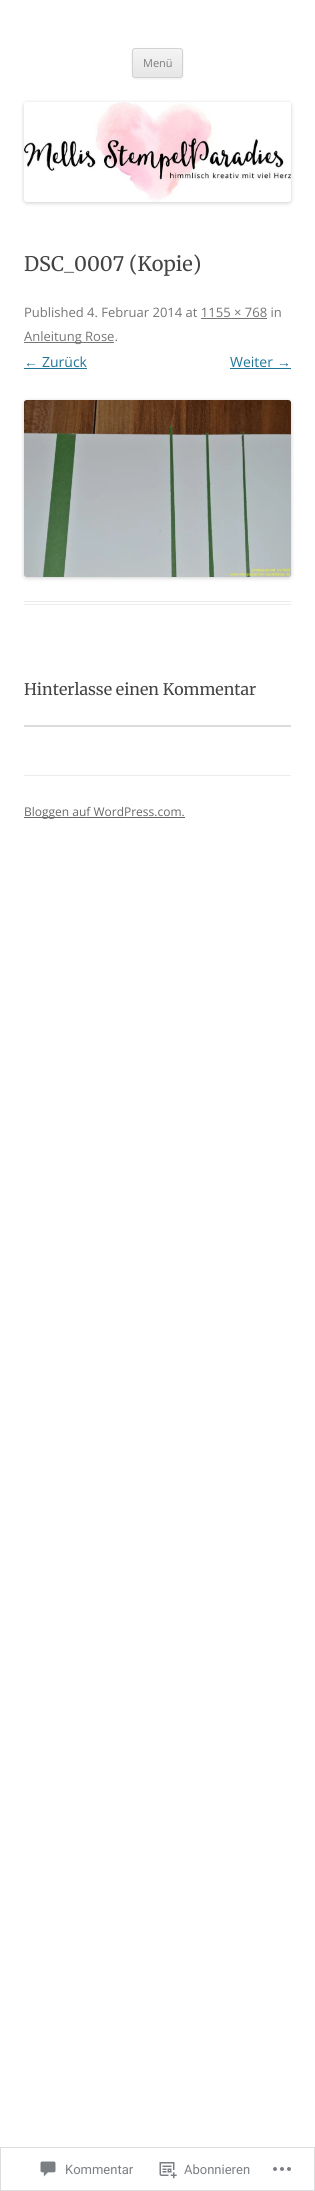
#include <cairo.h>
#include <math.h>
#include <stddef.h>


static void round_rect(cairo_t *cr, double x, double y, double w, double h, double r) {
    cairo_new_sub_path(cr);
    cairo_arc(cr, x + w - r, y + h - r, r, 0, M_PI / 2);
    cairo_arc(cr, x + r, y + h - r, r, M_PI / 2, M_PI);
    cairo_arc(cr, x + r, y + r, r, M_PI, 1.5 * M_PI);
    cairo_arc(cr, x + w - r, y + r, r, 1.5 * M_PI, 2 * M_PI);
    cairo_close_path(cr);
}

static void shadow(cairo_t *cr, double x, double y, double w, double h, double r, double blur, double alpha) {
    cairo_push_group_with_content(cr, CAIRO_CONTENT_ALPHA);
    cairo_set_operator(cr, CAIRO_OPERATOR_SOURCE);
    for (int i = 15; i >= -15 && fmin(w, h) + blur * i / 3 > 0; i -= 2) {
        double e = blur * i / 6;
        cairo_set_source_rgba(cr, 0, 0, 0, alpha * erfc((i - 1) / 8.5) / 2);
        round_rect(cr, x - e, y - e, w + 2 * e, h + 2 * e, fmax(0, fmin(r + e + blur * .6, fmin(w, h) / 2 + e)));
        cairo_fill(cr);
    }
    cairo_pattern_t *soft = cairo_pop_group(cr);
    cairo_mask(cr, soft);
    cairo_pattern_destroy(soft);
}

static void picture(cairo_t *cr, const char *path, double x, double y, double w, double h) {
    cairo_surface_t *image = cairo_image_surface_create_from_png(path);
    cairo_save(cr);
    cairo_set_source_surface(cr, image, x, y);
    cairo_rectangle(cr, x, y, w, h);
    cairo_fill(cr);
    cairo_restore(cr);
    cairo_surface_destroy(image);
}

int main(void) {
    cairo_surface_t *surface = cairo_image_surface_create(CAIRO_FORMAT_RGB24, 315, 2191);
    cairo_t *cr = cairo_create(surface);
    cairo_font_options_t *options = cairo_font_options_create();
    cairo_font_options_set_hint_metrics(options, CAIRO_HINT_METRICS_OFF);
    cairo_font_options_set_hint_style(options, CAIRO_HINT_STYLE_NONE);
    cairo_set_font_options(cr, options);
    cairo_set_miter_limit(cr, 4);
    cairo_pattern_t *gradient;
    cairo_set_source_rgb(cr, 1, 1, 1);
    cairo_paint(cr);
    cairo_set_source_rgb(cr, 0.251, 0.251, 0.251);
    shadow(cr, 132, 49, 51, 30, 3, 1, 0.1);
    cairo_save(cr);
    round_rect(cr, 132, 48, 51, 30, 3);
    cairo_clip(cr);
    gradient = cairo_pattern_create_linear(158, 49, 158, 77);
    cairo_pattern_add_color_stop_rgba(gradient, 0, 0.957, 0.957, 0.957, 1);
    cairo_pattern_add_color_stop_rgba(gradient, 1, 0.902, 0.902, 0.902, 1);
    cairo_set_source(cr, gradient);
    cairo_pattern_destroy(gradient);
    cairo_rectangle(cr, 132, 49, 51, 28);
    cairo_fill(cr);
    cairo_restore(cr);
    round_rect(cr, 132.5, 48.5, 50, 29, 2.5);
    cairo_set_source_rgb(cr, 0.824, 0.824, 0.824);
    cairo_set_line_width(cr, 1);
    cairo_stroke(cr);
    cairo_select_font_face(cr, "Open Sans", CAIRO_FONT_SLANT_NORMAL, CAIRO_FONT_WEIGHT_NORMAL);
    cairo_set_font_size(cr, 11);
    cairo_set_source_rgb(cr, 0.486, 0.486, 0.486);
    cairo_move_to(cr, 143, 67);
    cairo_show_text(cr, "Menü");
    cairo_set_source_rgb(cr, 0, 0, 0);
    shadow(cr, 24, 103, 267, 100, 3, 2, 0.2);
    picture(cr, "img1.png", 24, 102, 267, 100);
    cairo_set_source_rgb(cr, 0.929, 0.929, 0.929);
    cairo_rectangle(cr, 24, 601, 267, 1);
    cairo_fill(cr);
    cairo_rectangle(cr, 24, 604, 267, 1);
    cairo_fill(cr);
    cairo_select_font_face(cr, "Merriweather Light", CAIRO_FONT_SLANT_NORMAL, CAIRO_FONT_WEIGHT_NORMAL);
    cairo_set_font_size(cr, 20);
    cairo_set_source_rgb(cr, 0.267, 0.267, 0.267);
    cairo_move_to(cr, 24, 271);
    cairo_show_text(cr, "DSC_0007 (Kopie)");
    cairo_select_font_face(cr, "Open Sans", CAIRO_FONT_SLANT_NORMAL, CAIRO_FONT_WEIGHT_NORMAL);
    cairo_set_font_size(cr, 13);
    cairo_set_source_rgb(cr, 0.459, 0.459, 0.459);
    cairo_move_to(cr, 24, 317);
    cairo_show_text(cr, "Published 4. Februar 2014 at 1155 × 768 in");
    cairo_rectangle(cr, 201, 318, 66, 1);
    cairo_fill(cr);
    cairo_rectangle(cr, 24, 342, 90, 1);
    cairo_fill(cr);
    cairo_move_to(cr, 24, 341);
    cairo_show_text(cr, "Anleitung Rose.");
    cairo_select_font_face(cr, "Liberation Sans", CAIRO_FONT_SLANT_NORMAL, CAIRO_FONT_WEIGHT_NORMAL);
    cairo_set_font_size(cr, 14);
    cairo_set_source_rgb(cr, 0.129, 0.459, 0.608);
    cairo_move_to(cr, 24, 367);
    cairo_show_text(cr, "←");
    cairo_rectangle(cr, 24, 368, 63, 1);
    cairo_fill(cr);
    cairo_select_font_face(cr, "Open Sans", CAIRO_FONT_SLANT_NORMAL, CAIRO_FONT_WEIGHT_NORMAL);
    cairo_move_to(cr, 42, 367);
    cairo_show_text(cr, "Zurück");
    cairo_move_to(cr, 230, 367);
    cairo_show_text(cr, "Weiter");
    cairo_select_font_face(cr, "Liberation Sans", CAIRO_FONT_SLANT_NORMAL, CAIRO_FONT_WEIGHT_NORMAL);
    cairo_move_to(cr, 277, 367);
    cairo_show_text(cr, "→");
    cairo_rectangle(cr, 230, 368, 61, 1);
    cairo_fill(cr);
    cairo_set_source_rgb(cr, 0, 0, 0);
    shadow(cr, 24, 401, 267, 177, 3, 2, 0.2);
    picture(cr, "img2.png", 24, 400, 267, 177);
    cairo_select_font_face(cr, "Merriweather Light", CAIRO_FONT_SLANT_NORMAL, CAIRO_FONT_WEIGHT_NORMAL);
    cairo_set_font_size(cr, 16);
    cairo_set_source_rgb(cr, 0.267, 0.267, 0.267);
    cairo_move_to(cr, 24, 695);
    cairo_show_text(cr, "Hinterlasse einen Kommentar");
    cairo_set_source_rgb(cr, 0.863, 0.863, 0.871);
    cairo_rectangle(cr, 24, 725, 267, 2);
    cairo_fill(cr);
    cairo_set_source_rgb(cr, 0.929, 0.929, 0.929);
    cairo_rectangle(cr, 24, 775, 267, 1);
    cairo_fill(cr);
    cairo_set_source_rgb(cr, 0.408, 0.408, 0.408);
    cairo_rectangle(cr, 24, 817, 161, 1);
    cairo_fill(cr);
    cairo_select_font_face(cr, "Open Sans", CAIRO_FONT_SLANT_NORMAL, CAIRO_FONT_WEIGHT_NORMAL);
    cairo_set_font_size(cr, 12);
    cairo_move_to(cr, 24, 816);
    cairo_show_text(cr, "Bloggen auf WordPress.com.");
    cairo_rectangle(cr, 0.5, 2147.5, 314, 43);
    cairo_set_source_rgb(cr, 0.867, 0.867, 0.875);
    cairo_stroke(cr);
    picture(cr, "img3.png", 40, 2161, 16, 16);
    cairo_select_font_face(cr, "Roboto", CAIRO_FONT_SLANT_NORMAL, CAIRO_FONT_WEIGHT_NORMAL);
    cairo_set_font_size(cr, 13);
    cairo_set_source_rgb(cr, 0.482, 0.498, 0.522);
    cairo_move_to(cr, 65, 2174);
    cairo_show_text(cr, "Kommentar");
    picture(cr, "img4.png", 159, 2162, 18, 17);
    cairo_move_to(cr, 184, 2174);
    cairo_show_text(cr, "Abonnieren");
    picture(cr, "img5.png", 273, 2167, 18, 4);
    cairo_surface_write_to_png(surface, "page.png");
    cairo_font_options_destroy(options);
    cairo_destroy(cr);
    cairo_surface_destroy(surface);
    return 0;
}
